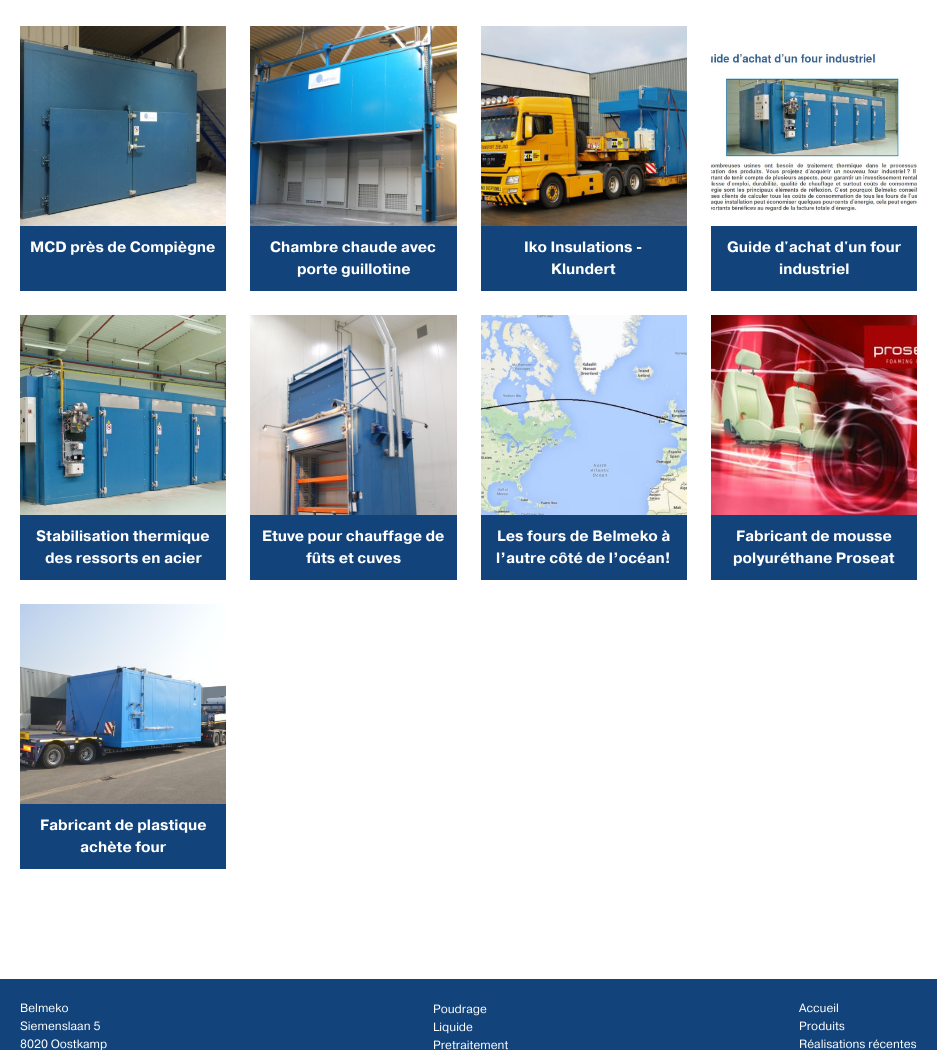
#include <cairo.h>
#include <math.h>
#include <stddef.h>


static void picture(cairo_t *cr, const char *path, double x, double y, double w, double h) {
    cairo_surface_t *image = cairo_image_surface_create_from_png(path);
    cairo_save(cr);
    cairo_set_source_surface(cr, image, x, y);
    cairo_rectangle(cr, x, y, w, h);
    cairo_fill(cr);
    cairo_restore(cr);
    cairo_surface_destroy(image);
}

int main(void) {
    cairo_surface_t *surface = cairo_image_surface_create(CAIRO_FORMAT_RGB24, 937, 1050);
    cairo_t *cr = cairo_create(surface);
    cairo_font_options_t *options = cairo_font_options_create();
    cairo_font_options_set_hint_metrics(options, CAIRO_HINT_METRICS_OFF);
    cairo_font_options_set_hint_style(options, CAIRO_HINT_STYLE_NONE);
    cairo_set_font_options(cr, options);
    cairo_set_miter_limit(cr, 4);
    cairo_set_source_rgb(cr, 1, 1, 1);
    cairo_paint(cr);
    picture(cr, "img1.png", 20, 26, 206, 200);
    cairo_set_source_rgb(cr, 0.071, 0.263, 0.482);
    cairo_rectangle(cr, 20, 226, 206, 65);
    cairo_fill(cr);
    cairo_select_font_face(cr, "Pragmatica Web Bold", CAIRO_FONT_SLANT_NORMAL, CAIRO_FONT_WEIGHT_BOLD);
    cairo_set_font_size(cr, 15);
    cairo_set_source_rgb(cr, 1, 1, 1);
    cairo_move_to(cr, 30, 252);
    cairo_show_text(cr, "MCD près de Compiègne");
    picture(cr, "img2.png", 250, 26, 207, 200);
    cairo_set_source_rgb(cr, 0.071, 0.263, 0.482);
    cairo_rectangle(cr, 250, 226, 207, 65);
    cairo_fill(cr);
    cairo_set_source_rgb(cr, 1, 1, 1);
    cairo_move_to(cr, 270, 252);
    cairo_show_text(cr, "Chambre chaude avec");
    cairo_move_to(cr, 297, 274);
    cairo_show_text(cr, "porte guillotine");
    picture(cr, "img3.png", 481, 26, 206, 200);
    cairo_set_source_rgb(cr, 0.071, 0.263, 0.482);
    cairo_rectangle(cr, 481, 226, 206, 65);
    cairo_fill(cr);
    cairo_set_source_rgb(cr, 1, 1, 1);
    cairo_move_to(cr, 524, 252);
    cairo_show_text(cr, "Iko Insulations -");
    cairo_move_to(cr, 551, 274);
    cairo_show_text(cr, "Klundert");
    picture(cr, "img4.png", 711, 26, 206, 200);
    cairo_set_source_rgb(cr, 0.071, 0.263, 0.482);
    cairo_rectangle(cr, 711, 226, 206, 65);
    cairo_fill(cr);
    cairo_set_source_rgb(cr, 1, 1, 1);
    cairo_move_to(cr, 727, 252);
    cairo_show_text(cr, "Guide d'achat d'un four");
    cairo_move_to(cr, 779, 274);
    cairo_show_text(cr, "industriel");
    picture(cr, "img5.png", 20, 315, 206, 200);
    cairo_set_source_rgb(cr, 0.071, 0.263, 0.482);
    cairo_rectangle(cr, 20, 515, 206, 65);
    cairo_fill(cr);
    cairo_set_source_rgb(cr, 1, 1, 1);
    cairo_move_to(cr, 36, 541);
    cairo_show_text(cr, "Stabilisation thermique");
    cairo_move_to(cr, 45, 563);
    cairo_show_text(cr, "des ressorts en acier");
    picture(cr, "img6.png", 250, 315, 207, 200);
    cairo_set_source_rgb(cr, 0.071, 0.263, 0.482);
    cairo_rectangle(cr, 250, 515, 207, 65);
    cairo_fill(cr);
    cairo_set_source_rgb(cr, 1, 1, 1);
    cairo_move_to(cr, 262, 541);
    cairo_show_text(cr, "Etuve pour chauffage de");
    cairo_move_to(cr, 306, 563);
    cairo_show_text(cr, "fûts et cuves");
    picture(cr, "img7.png", 481, 315, 206, 200);
    cairo_set_source_rgb(cr, 0.071, 0.263, 0.482);
    cairo_rectangle(cr, 481, 515, 206, 65);
    cairo_fill(cr);
    cairo_set_source_rgb(cr, 1, 1, 1);
    cairo_move_to(cr, 497, 541);
    cairo_show_text(cr, "Les fours de Belmeko à");
    cairo_move_to(cr, 496, 563);
    cairo_show_text(cr, "l’autre côté de l’océan!");
    picture(cr, "img8.png", 711, 315, 206, 200);
    cairo_set_source_rgb(cr, 0.071, 0.263, 0.482);
    cairo_rectangle(cr, 711, 515, 206, 65);
    cairo_fill(cr);
    cairo_set_source_rgb(cr, 1, 1, 1);
    cairo_move_to(cr, 736, 541);
    cairo_show_text(cr, "Fabricant de mousse");
    cairo_move_to(cr, 733, 563);
    cairo_show_text(cr, "polyuréthane Proseat");
    picture(cr, "img9.png", 20, 604, 206, 200);
    cairo_set_source_rgb(cr, 0.071, 0.263, 0.482);
    cairo_rectangle(cr, 20, 804, 206, 65);
    cairo_fill(cr);
    cairo_set_source_rgb(cr, 1, 1, 1);
    cairo_move_to(cr, 40, 830);
    cairo_show_text(cr, "Fabricant de plastique");
    cairo_move_to(cr, 80, 852);
    cairo_show_text(cr, "achète four");
    cairo_set_source_rgb(cr, 0.071, 0.263, 0.482);
    cairo_rectangle(cr, 0, 979, 937, 71);
    cairo_fill(cr);
    cairo_select_font_face(cr, "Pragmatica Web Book", CAIRO_FONT_SLANT_NORMAL, CAIRO_FONT_WEIGHT_NORMAL);
    cairo_set_font_size(cr, 12);
    cairo_set_source_rgb(cr, 1, 1, 1);
    cairo_move_to(cr, 20, 1012);
    cairo_show_text(cr, "Belmeko");
    cairo_move_to(cr, 20, 1030);
    cairo_show_text(cr, "Siemenslaan 5");
    cairo_move_to(cr, 20, 1048);
    cairo_show_text(cr, "8020 Oostkamp");
    cairo_move_to(cr, 433, 1013);
    cairo_show_text(cr, "Poudrage");
    cairo_move_to(cr, 433, 1031);
    cairo_show_text(cr, "Liquide");
    cairo_move_to(cr, 433, 1049);
    cairo_show_text(cr, "Pretraitement");
    cairo_move_to(cr, 799, 1012);
    cairo_show_text(cr, "Accueil");
    cairo_move_to(cr, 799, 1030);
    cairo_show_text(cr, "Produits");
    cairo_move_to(cr, 799, 1048);
    cairo_show_text(cr, "Réalisations récentes");
    cairo_surface_write_to_png(surface, "page.png");
    cairo_font_options_destroy(options);
    cairo_destroy(cr);
    cairo_surface_destroy(surface);
    return 0;
}
